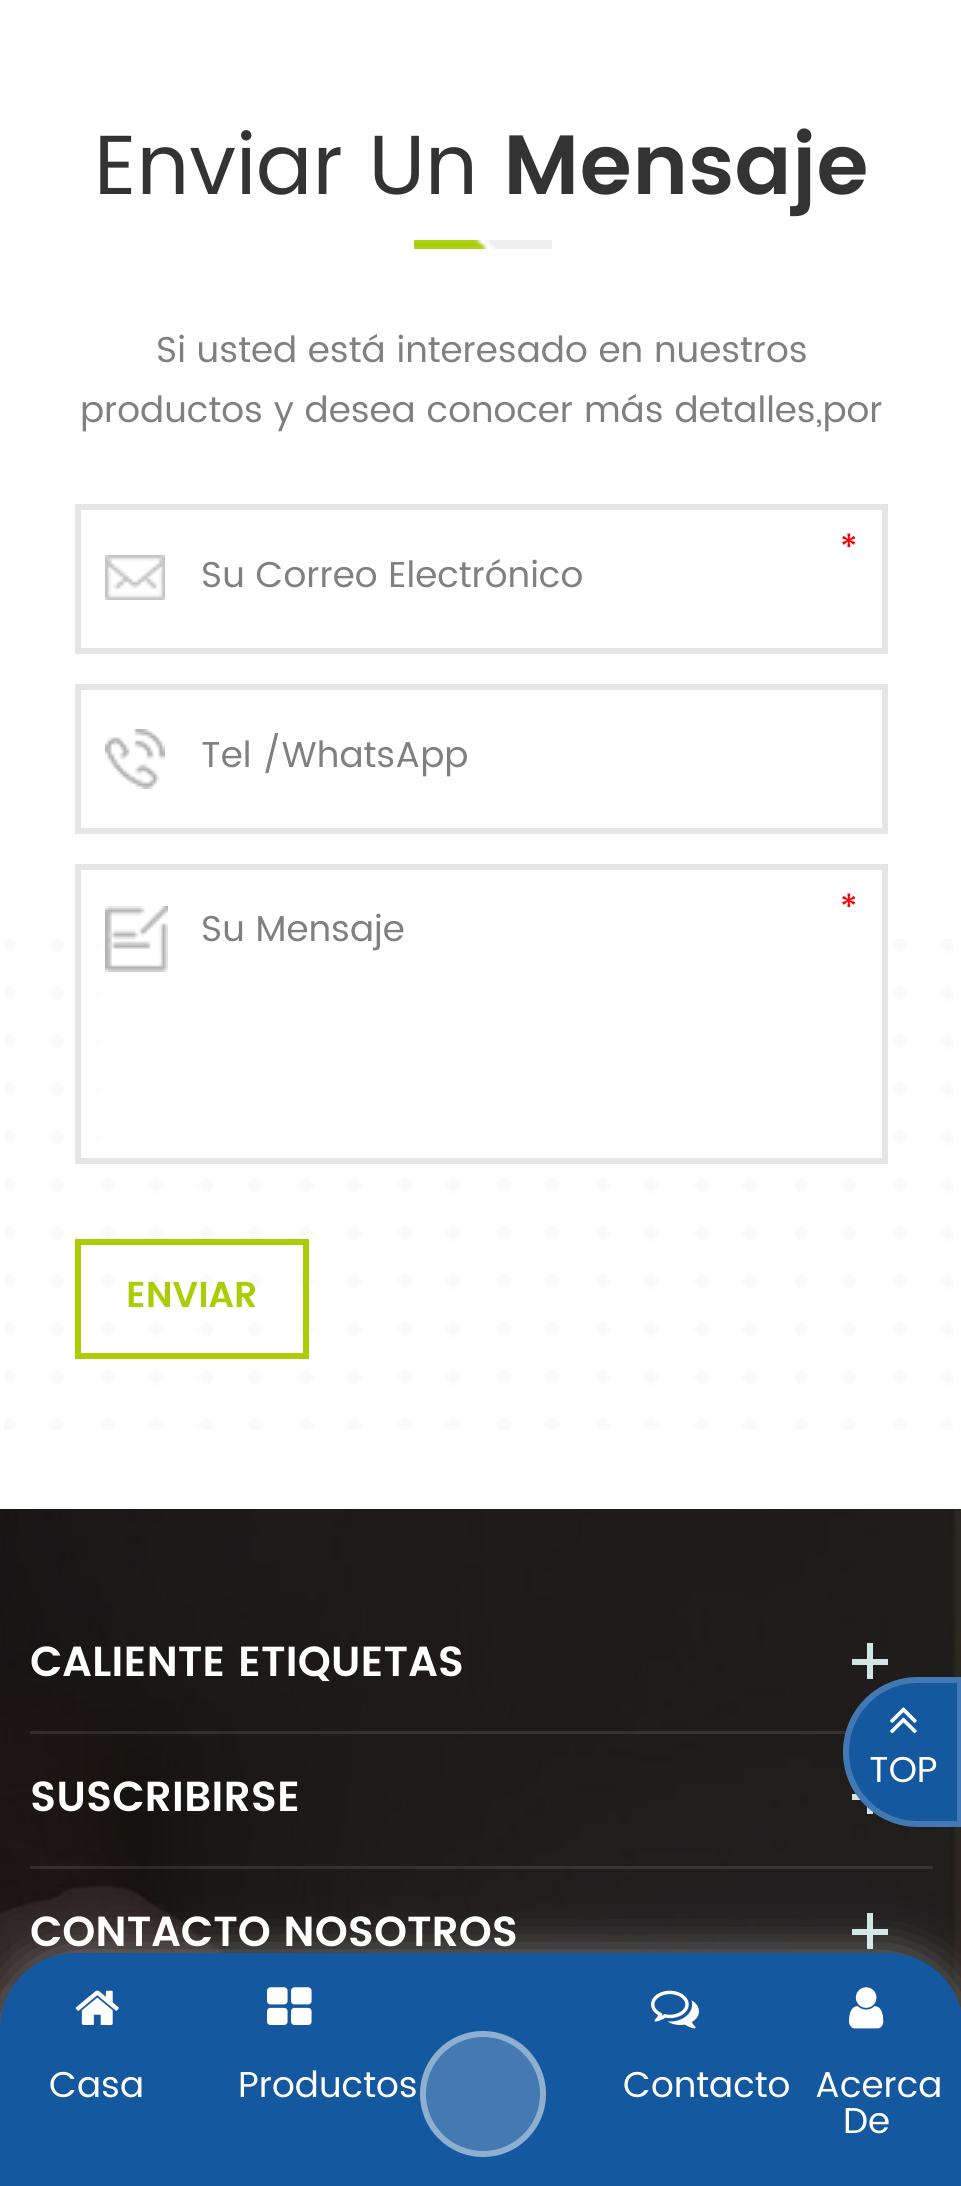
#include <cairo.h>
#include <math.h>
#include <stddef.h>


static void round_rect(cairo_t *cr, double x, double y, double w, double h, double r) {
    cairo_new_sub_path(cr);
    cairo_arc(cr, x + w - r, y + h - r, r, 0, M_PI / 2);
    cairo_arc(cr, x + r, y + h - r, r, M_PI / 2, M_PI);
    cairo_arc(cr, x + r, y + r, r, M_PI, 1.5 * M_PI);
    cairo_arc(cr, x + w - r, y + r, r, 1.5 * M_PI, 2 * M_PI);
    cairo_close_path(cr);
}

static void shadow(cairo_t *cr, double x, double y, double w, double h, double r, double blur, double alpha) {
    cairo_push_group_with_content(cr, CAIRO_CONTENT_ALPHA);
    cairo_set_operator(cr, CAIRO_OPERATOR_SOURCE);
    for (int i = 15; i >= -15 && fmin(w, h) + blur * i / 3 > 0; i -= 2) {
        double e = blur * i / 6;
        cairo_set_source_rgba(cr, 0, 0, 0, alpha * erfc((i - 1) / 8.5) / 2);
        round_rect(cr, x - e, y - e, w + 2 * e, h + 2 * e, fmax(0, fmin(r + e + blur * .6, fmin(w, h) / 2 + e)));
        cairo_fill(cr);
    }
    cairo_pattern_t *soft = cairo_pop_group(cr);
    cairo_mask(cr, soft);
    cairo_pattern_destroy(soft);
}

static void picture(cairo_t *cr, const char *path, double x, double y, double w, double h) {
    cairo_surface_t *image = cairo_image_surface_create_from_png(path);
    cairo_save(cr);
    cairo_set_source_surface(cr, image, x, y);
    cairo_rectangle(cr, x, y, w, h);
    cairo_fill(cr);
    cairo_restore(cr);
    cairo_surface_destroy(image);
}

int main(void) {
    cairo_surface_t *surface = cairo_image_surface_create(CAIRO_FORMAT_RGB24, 961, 2186);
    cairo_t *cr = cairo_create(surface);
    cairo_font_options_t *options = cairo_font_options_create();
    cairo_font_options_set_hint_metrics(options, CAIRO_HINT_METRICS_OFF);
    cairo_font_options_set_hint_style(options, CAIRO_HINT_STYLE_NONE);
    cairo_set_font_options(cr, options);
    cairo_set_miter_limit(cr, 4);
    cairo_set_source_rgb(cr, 1, 1, 1);
    cairo_paint(cr);
    picture(cr, "img1.png", 414, 240, 138, 9);
    cairo_select_font_face(cr, "Poppins", CAIRO_FONT_SLANT_NORMAL, CAIRO_FONT_WEIGHT_NORMAL);
    cairo_set_font_size(cr, 84);
    cairo_set_source_rgb(cr, 0.2, 0.2, 0.2);
    cairo_move_to(cr, 94, 194);
    cairo_show_text(cr, "Enviar Un");
    cairo_select_font_face(cr, "Poppins SemiBold", CAIRO_FONT_SLANT_NORMAL, CAIRO_FONT_WEIGHT_NORMAL);
    cairo_move_to(cr, 503, 194);
    cairo_show_text(cr, "Mensaje");
    cairo_select_font_face(cr, "Poppins", CAIRO_FONT_SLANT_NORMAL, CAIRO_FONT_WEIGHT_NORMAL);
    cairo_set_font_size(cr, 36);
    cairo_set_source_rgb(cr, 0.502, 0.502, 0.502);
    cairo_move_to(cr, 156, 362);
    cairo_show_text(cr, "Si usted está interesado en nuestros");
    cairo_move_to(cr, 80, 422);
    cairo_show_text(cr, "productos y desea conocer más detalles,por");
    cairo_rectangle(cr, 78, 507, 807, 144);
    cairo_set_source_rgb(cr, 0.898, 0.898, 0.898);
    cairo_set_line_width(cr, 6);
    cairo_stroke(cr);
    cairo_set_source_rgb(cr, 1, 0, 0);
    cairo_move_to(cr, 840, 560);
    cairo_show_text(cr, "*");
    picture(cr, "img2.png", 105, 555, 60, 45);
    cairo_set_source_rgb(cr, 0.502, 0.502, 0.502);
    cairo_move_to(cr, 201, 587);
    cairo_show_text(cr, "Su Correo Electrónico");
    cairo_rectangle(cr, 78, 687, 807, 144);
    cairo_set_source_rgb(cr, 0.898, 0.898, 0.898);
    cairo_stroke(cr);
    picture(cr, "img3.png", 105, 729, 60, 60);
    cairo_set_source_rgb(cr, 0.502, 0.502, 0.502);
    cairo_move_to(cr, 201, 767);
    cairo_show_text(cr, "Tel /WhatsApp");
    picture(cr, "img5.png", 4, 939, 949, 491);
    cairo_set_source_rgb(cr, 1, 1, 1);
    cairo_rectangle(cr, 101, 939, 756, 206);
    cairo_fill(cr);
    cairo_rectangle(cr, 78, 867, 807, 294);
    cairo_set_source_rgb(cr, 0.898, 0.898, 0.898);
    cairo_stroke(cr);
    cairo_set_source_rgb(cr, 1, 0, 0);
    cairo_move_to(cr, 840, 920);
    cairo_show_text(cr, "*");
    picture(cr, "img4.png", 105, 906, 63, 66);
    cairo_set_source_rgb(cr, 0.502, 0.502, 0.502);
    cairo_move_to(cr, 201, 941);
    cairo_show_text(cr, "Su Mensaje");
    cairo_rectangle(cr, 78, 1242, 228, 114);
    cairo_set_source_rgb(cr, 0.667, 0.804, 0.024);
    cairo_stroke(cr);
    cairo_select_font_face(cr, "Poppins SemiBold", CAIRO_FONT_SLANT_NORMAL, CAIRO_FONT_WEIGHT_NORMAL);
    cairo_move_to(cr, 126, 1307);
    cairo_show_text(cr, "ENVIAR");
    picture(cr, "img6.png", 0, 1509, 961, 519);
    cairo_set_source_rgba(cr, 1, 1, 1, 0.1);
    cairo_rectangle(cr, 30, 1731, 816, 3);
    cairo_fill(cr);
    cairo_set_font_size(cr, 42);
    cairo_set_source_rgb(cr, 1, 1, 1);
    cairo_move_to(cr, 30, 1676);
    cairo_show_text(cr, "CALIENTE ETIQUETAS");
    cairo_set_source_rgb(cr, 0.82, 0.898, 0.898);
    cairo_rectangle(cr, 852, 1659, 36, 6);
    cairo_fill(cr);
    cairo_rectangle(cr, 867, 1643, 6, 36);
    cairo_fill(cr);
    cairo_set_source_rgba(cr, 1, 1, 1, 0.1);
    cairo_rectangle(cr, 30, 1866, 903, 3);
    cairo_fill(cr);
    cairo_set_source_rgb(cr, 1, 1, 1);
    cairo_move_to(cr, 30, 1811);
    cairo_show_text(cr, "SUSCRIBIRSE");
    cairo_set_source_rgb(cr, 0.82, 0.898, 0.898);
    cairo_rectangle(cr, 852, 1794, 9, 6);
    cairo_fill(cr);
    cairo_rectangle(cr, 867, 1807, 6, 7);
    cairo_fill(cr);
    cairo_set_source_rgb(cr, 1, 1, 1);
    cairo_move_to(cr, 30, 1946);
    cairo_show_text(cr, "CONTACTO NOSOTROS");
    cairo_set_source_rgb(cr, 0.82, 0.898, 0.898);
    cairo_rectangle(cr, 852, 1929, 36, 6);
    cairo_fill(cr);
    cairo_rectangle(cr, 867, 1913, 6, 36);
    cairo_fill(cr);
    cairo_set_source_rgb(cr, 0.082, 0.345, 0.624);
    cairo_new_path(cr);
    cairo_move_to(cr, 918, 1677);
    cairo_line_to(cr, 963, 1677);
    cairo_line_to(cr, 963, 1827);
    cairo_line_to(cr, 918, 1827);
    cairo_curve_to(cr, 876.5, 1827, 843, 1793.5, 843, 1752);
    cairo_curve_to(cr, 843, 1710.5, 876.5, 1677, 918, 1677);
    cairo_close_path(cr);
    cairo_fill(cr);
    cairo_new_path(cr);
    cairo_move_to(cr, 918, 1680);
    cairo_line_to(cr, 960, 1680);
    cairo_line_to(cr, 960, 1824);
    cairo_line_to(cr, 918, 1824);
    cairo_curve_to(cr, 878, 1824, 846, 1792, 846, 1752);
    cairo_curve_to(cr, 846, 1712, 878, 1680, 918, 1680);
    cairo_close_path(cr);
    cairo_set_source_rgba(cr, 1, 1, 1, 0.2);
    cairo_stroke(cr);
    picture(cr, "img7.png", 890, 1707, 27, 27);
    cairo_select_font_face(cr, "Poppins", CAIRO_FONT_SLANT_NORMAL, CAIRO_FONT_WEIGHT_NORMAL);
    cairo_set_font_size(cr, 36);
    cairo_set_source_rgb(cr, 1, 1, 1);
    cairo_move_to(cr, 869, 1782);
    cairo_show_text(cr, "TOP");
    cairo_set_source_rgb(cr, 1, 1, 1);
    shadow(cr, 0, 1953, 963, 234, 75, 22.5, 0.4);
    cairo_set_source_rgb(cr, 0.082, 0.345, 0.624);
    cairo_new_path(cr);
    cairo_move_to(cr, 75, 1953);
    cairo_line_to(cr, 888, 1953);
    cairo_curve_to(cr, 929.5, 1953, 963, 1986.5, 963, 2028);
    cairo_line_to(cr, 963, 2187);
    cairo_line_to(cr, 0, 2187);
    cairo_line_to(cr, 0, 2028);
    cairo_curve_to(cr, 0, 1986.5, 33.5, 1953, 75, 1953);
    cairo_close_path(cr);
    cairo_fill(cr);
    cairo_set_source_rgb(cr, 0.267, 0.475, 0.698);
    cairo_arc(cr, 483, 2094, 63, 0, 2 * M_PI);
    cairo_fill(cr);
    cairo_arc(cr, 483, 2094, 60, 0, 2 * M_PI);
    cairo_set_source_rgba(cr, 1, 1, 1, 0.4);
    cairo_stroke(cr);
    picture(cr, "img8.png", 75, 1990, 44, 35);
    cairo_set_source_rgb(cr, 1, 1, 1);
    cairo_move_to(cr, 49, 2097);
    cairo_show_text(cr, "Casa");
    picture(cr, "img9.png", 267, 1987, 45, 38);
    cairo_move_to(cr, 238, 2097);
    cairo_show_text(cr, "Productos");
    picture(cr, "img10.png", 651, 1990, 48, 39);
    cairo_move_to(cr, 623, 2097);
    cairo_show_text(cr, "Contacto");
    picture(cr, "img11.png", 849, 1987, 35, 42);
    cairo_move_to(cr, 815, 2097);
    cairo_show_text(cr, "Acerca");
    cairo_move_to(cr, 843, 2133);
    cairo_show_text(cr, "De");
    cairo_surface_write_to_png(surface, "page.png");
    cairo_font_options_destroy(options);
    cairo_destroy(cr);
    cairo_surface_destroy(surface);
    return 0;
}
